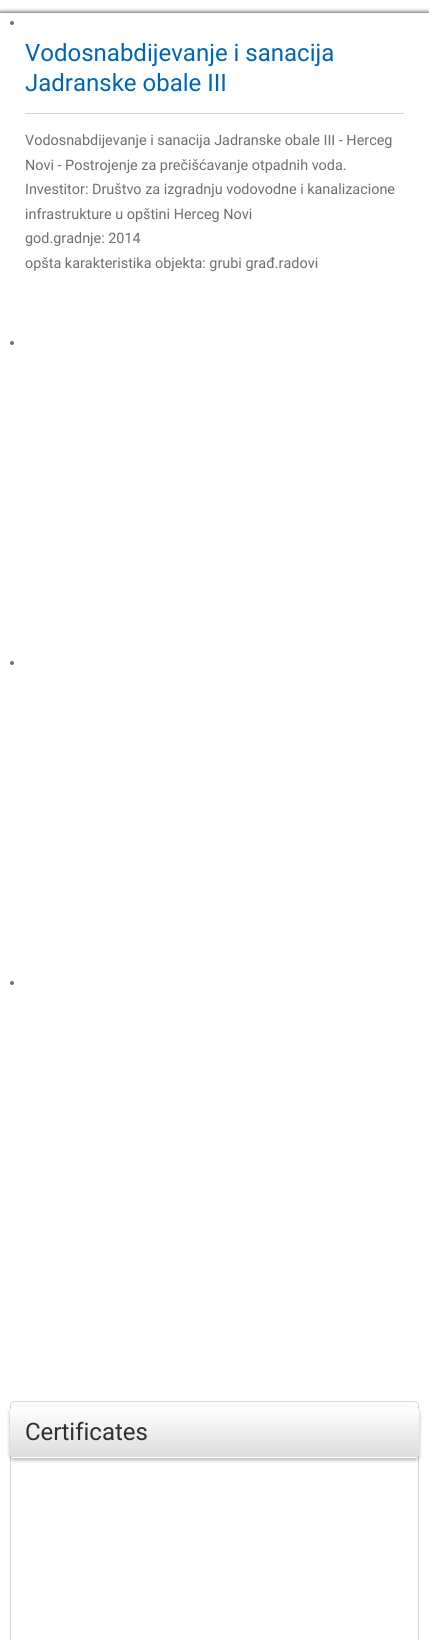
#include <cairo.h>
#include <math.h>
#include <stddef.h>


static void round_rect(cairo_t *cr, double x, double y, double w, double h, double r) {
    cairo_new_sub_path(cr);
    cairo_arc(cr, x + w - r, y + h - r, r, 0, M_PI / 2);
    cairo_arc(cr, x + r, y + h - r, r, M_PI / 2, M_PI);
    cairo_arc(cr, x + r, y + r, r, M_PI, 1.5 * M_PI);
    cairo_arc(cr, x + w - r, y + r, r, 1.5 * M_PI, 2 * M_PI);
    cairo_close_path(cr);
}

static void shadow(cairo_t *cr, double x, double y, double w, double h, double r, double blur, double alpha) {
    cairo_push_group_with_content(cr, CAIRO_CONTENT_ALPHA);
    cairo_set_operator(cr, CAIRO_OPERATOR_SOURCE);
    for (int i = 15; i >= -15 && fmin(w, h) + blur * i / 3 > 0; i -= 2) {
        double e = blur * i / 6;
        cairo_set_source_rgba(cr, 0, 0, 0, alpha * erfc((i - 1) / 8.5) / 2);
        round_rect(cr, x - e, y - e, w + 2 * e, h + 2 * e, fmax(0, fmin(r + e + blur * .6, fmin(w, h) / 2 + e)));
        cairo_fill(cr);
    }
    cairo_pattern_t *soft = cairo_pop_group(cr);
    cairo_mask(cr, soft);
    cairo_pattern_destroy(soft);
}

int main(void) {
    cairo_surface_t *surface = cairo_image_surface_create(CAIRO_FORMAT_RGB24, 429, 1640);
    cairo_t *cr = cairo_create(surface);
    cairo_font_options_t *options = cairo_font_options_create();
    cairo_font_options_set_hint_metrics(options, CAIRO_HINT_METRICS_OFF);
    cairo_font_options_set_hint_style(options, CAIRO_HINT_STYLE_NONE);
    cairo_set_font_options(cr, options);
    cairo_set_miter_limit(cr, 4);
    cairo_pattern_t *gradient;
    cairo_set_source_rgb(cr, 1, 1, 1);
    cairo_paint(cr);
    cairo_set_source_rgb(cr, 0, 0, 0);
    shadow(cr, 0, 13, 429, 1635, 0, 2.5, 0.5);
    cairo_set_source_rgb(cr, 1, 1, 1);
    cairo_rectangle(cr, 0, 13, 429, 1627);
    cairo_fill(cr);
    cairo_save(cr);
    cairo_rectangle(cr, 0, 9, 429, 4);
    cairo_clip(cr);
    cairo_set_source_rgb(cr, 0, 0, 0);
    shadow(cr, 0, 13, 429, 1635, 0, 2.5, 0.5);
    cairo_restore(cr);
    cairo_set_source_rgb(cr, 0.431, 0.431, 0.431);
    cairo_arc(cr, 12, 23, 2, 0, 2 * M_PI);
    cairo_fill(cr);
    cairo_arc(cr, 12, 343, 2, 0, 2 * M_PI);
    cairo_fill(cr);
    cairo_arc(cr, 12, 663, 2, 0, 2 * M_PI);
    cairo_fill(cr);
    cairo_arc(cr, 12, 983, 2, 0, 2 * M_PI);
    cairo_fill(cr);
    cairo_set_source_rgb(cr, 0.82, 0.82, 0.82);
    cairo_rectangle(cr, 25, 113, 379, 1);
    cairo_fill(cr);
    cairo_select_font_face(cr, "Roboto", CAIRO_FONT_SLANT_NORMAL, CAIRO_FONT_WEIGHT_NORMAL);
    cairo_set_font_size(cr, 24);
    cairo_set_source_rgb(cr, 0, 0.396, 0.702);
    cairo_move_to(cr, 25, 61);
    cairo_show_text(cr, "Vodosnabdijevanje i sanacija");
    cairo_move_to(cr, 25, 91);
    cairo_show_text(cr, "Jadranske obale III");
    cairo_set_font_size(cr, 14.4);
    cairo_set_source_rgb(cr, 0.431, 0.431, 0.431);
    cairo_move_to(cr, 25, 145);
    cairo_show_text(cr, "Vodosnabdijevanje i sanacija Jadranske obale III - Herceg");
    cairo_move_to(cr, 25, 170);
    cairo_show_text(cr, "Novi - Postrojenje za prečišćavanje otpadnih voda.");
    cairo_move_to(cr, 25, 194);
    cairo_show_text(cr, "Investitor: Društvo za izgradnju vodovodne i kanalizacione");
    cairo_move_to(cr, 25, 219);
    cairo_show_text(cr, "infrastrukture u opštini Herceg Novi");
    cairo_move_to(cr, 25, 243);
    cairo_show_text(cr, "god.gradnje: 2014");
    cairo_move_to(cr, 25, 268);
    cairo_show_text(cr, "opšta karakteristika objekta: grubi građ.radovi");
    round_rect(cr, 10.5, 1401.5, 408, 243, 3.5);
    cairo_set_source_rgb(cr, 0.835, 0.835, 0.835);
    cairo_set_line_width(cr, 1);
    cairo_stroke(cr);
    cairo_set_source_rgb(cr, 0, 0, 0);
    shadow(cr, 10, 1409, 409, 51, 4, 2, 0.3);
    cairo_set_source_rgb(cr, 0.945, 0.945, 0.945);
    round_rect(cr, 10, 1407, 409, 51, 4);
    cairo_fill(cr);
    cairo_save(cr);
    round_rect(cr, 10, 1407, 409, 51, 4);
    cairo_clip(cr);
    gradient = cairo_pattern_create_linear(215, 1407, 215, 1457);
    cairo_pattern_add_color_stop_rgba(gradient, 0, 1, 1, 1, 1);
    cairo_pattern_add_color_stop_rgba(gradient, 1, 0.867, 0.867, 0.867, 1);
    cairo_set_source(cr, gradient);
    cairo_pattern_destroy(gradient);
    cairo_new_path(cr);
    cairo_move_to(cr, 14, 1407);
    cairo_line_to(cr, 415, 1407);
    cairo_curve_to(cr, 417, 1407, 419, 1409, 419, 1411);
    cairo_line_to(cr, 419, 1457);
    cairo_line_to(cr, 10, 1457);
    cairo_line_to(cr, 10, 1411);
    cairo_curve_to(cr, 10, 1409, 12, 1407, 14, 1407);
    cairo_close_path(cr);
    cairo_fill(cr);
    cairo_restore(cr);
    cairo_set_source_rgb(cr, 1, 1, 1);
    cairo_rectangle(cr, 12, 1457, 405, 1);
    cairo_fill(cr);
    cairo_set_font_size(cr, 24);
    cairo_set_source_rgb(cr, 0.188, 0.188, 0.188);
    cairo_move_to(cr, 25, 1440);
    cairo_show_text(cr, "Certificates");
    cairo_surface_write_to_png(surface, "page.png");
    cairo_font_options_destroy(options);
    cairo_destroy(cr);
    cairo_surface_destroy(surface);
    return 0;
}
